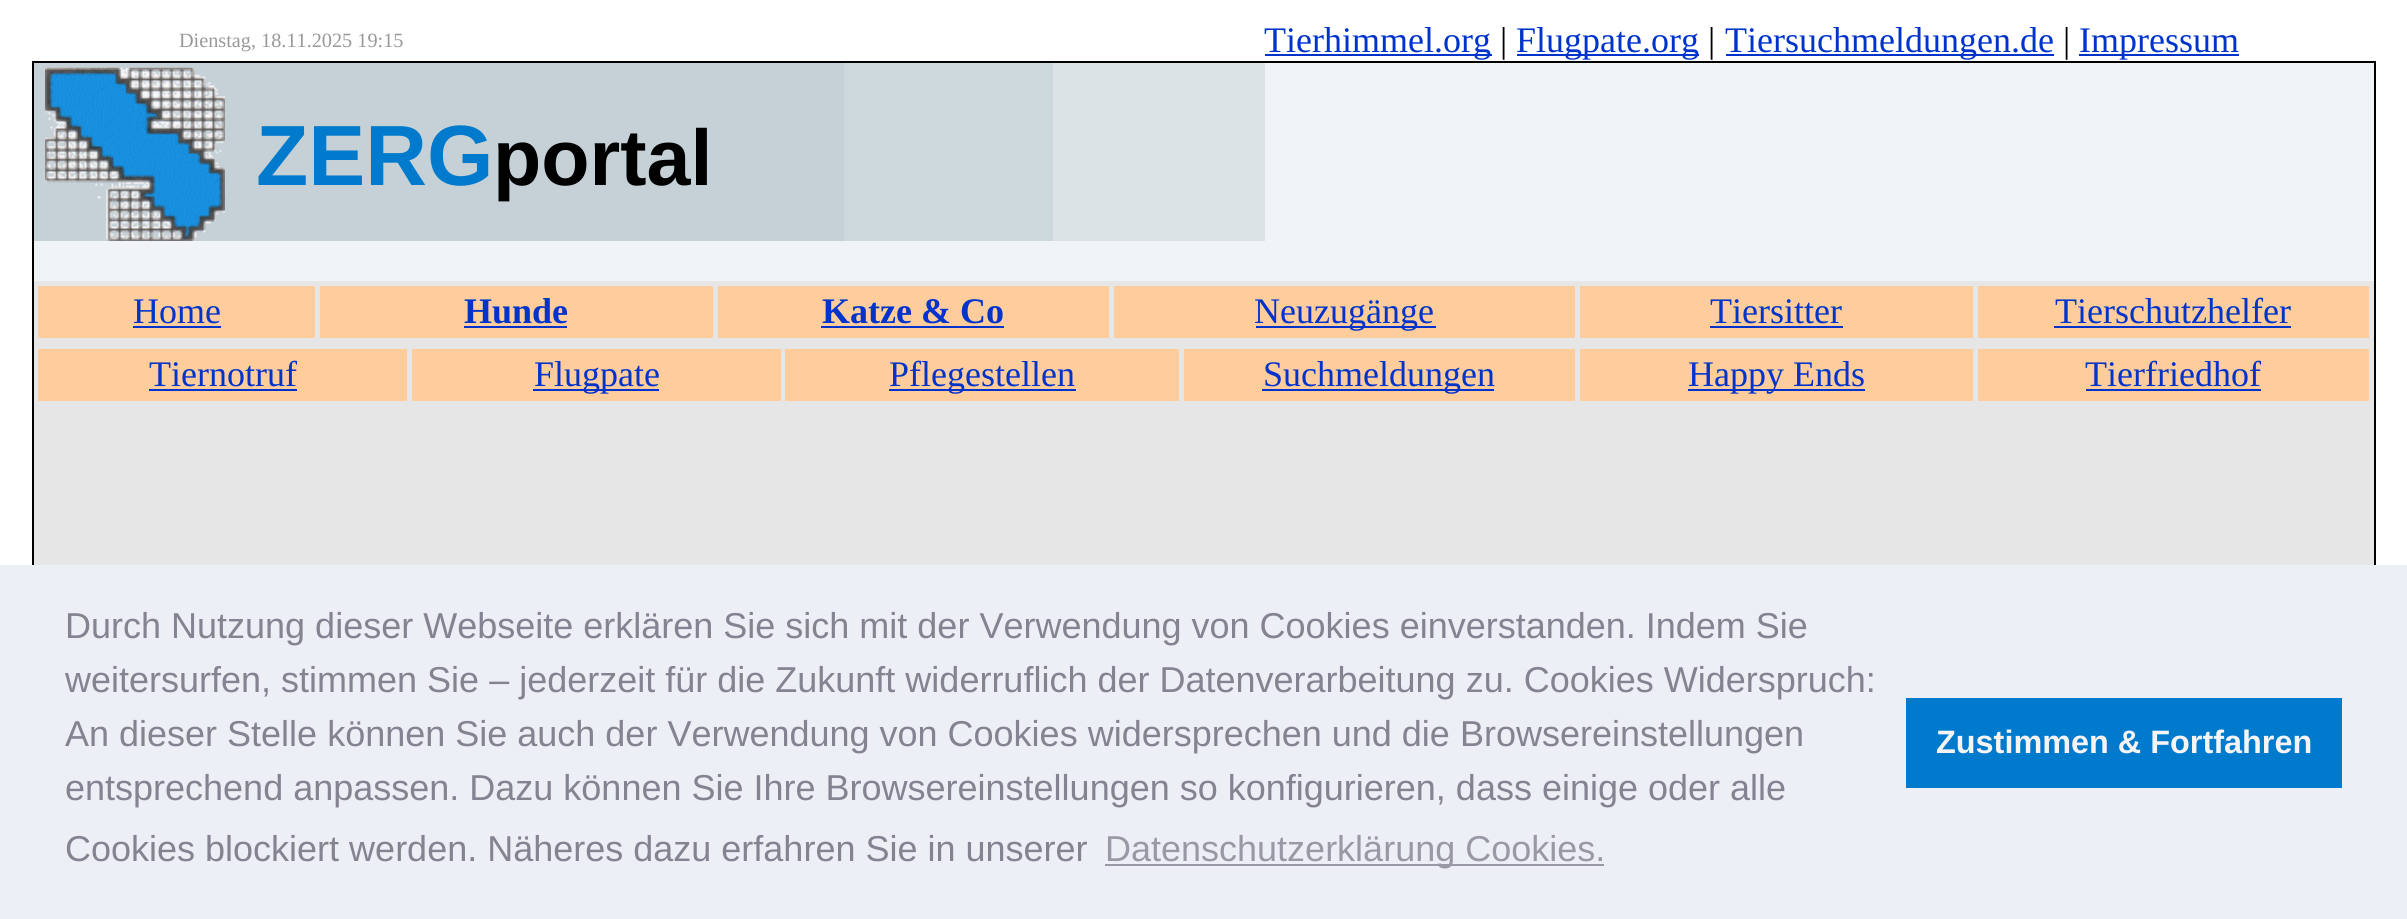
#include <cairo.h>
#include <math.h>
#include <stddef.h>


static void picture(cairo_t *cr, const char *path, double x, double y, double w, double h) {
    cairo_surface_t *image = cairo_image_surface_create_from_png(path);
    cairo_save(cr);
    cairo_set_source_surface(cr, image, x, y);
    cairo_rectangle(cr, x, y, w, h);
    cairo_fill(cr);
    cairo_restore(cr);
    cairo_surface_destroy(image);
}

int main(void) {
    cairo_surface_t *surface = cairo_image_surface_create(CAIRO_FORMAT_RGB24, 2407, 919);
    cairo_t *cr = cairo_create(surface);
    cairo_font_options_t *options = cairo_font_options_create();
    cairo_font_options_set_hint_metrics(options, CAIRO_HINT_METRICS_OFF);
    cairo_font_options_set_hint_style(options, CAIRO_HINT_STYLE_NONE);
    cairo_set_font_options(cr, options);
    cairo_set_miter_limit(cr, 4);
    cairo_set_source_rgb(cr, 1, 1, 1);
    cairo_paint(cr);
    cairo_select_font_face(cr, "Liberation Serif", CAIRO_FONT_SLANT_NORMAL, CAIRO_FONT_WEIGHT_NORMAL);
    cairo_set_font_size(cr, 20.25);
    cairo_set_source_rgb(cr, 0.6, 0.6, 0.6);
    cairo_move_to(cr, 179, 47);
    cairo_show_text(cr, "Dienstag, 18.11.2025 19:15");
    cairo_set_source_rgb(cr, 0, 0.2, 0.8);
    cairo_rectangle(cr, 1265, 54, 227, 2);
    cairo_fill(cr);
    cairo_set_font_size(cr, 36);
    cairo_move_to(cr, 1264, 52);
    cairo_show_text(cr, "Tierhimmel.org");
    cairo_set_source_rgb(cr, 0, 0, 0);
    cairo_move_to(cr, 1500, 52);
    cairo_show_text(cr, "|");
    cairo_set_source_rgb(cr, 0, 0.2, 0.8);
    cairo_rectangle(cr, 1517, 54, 182, 2);
    cairo_fill(cr);
    cairo_move_to(cr, 1516, 52);
    cairo_show_text(cr, "Flugpate.org");
    cairo_set_source_rgb(cr, 0, 0, 0);
    cairo_move_to(cr, 1708, 52);
    cairo_show_text(cr, "|");
    cairo_set_source_rgb(cr, 0, 0.2, 0.8);
    cairo_rectangle(cr, 1726, 54, 328, 2);
    cairo_fill(cr);
    cairo_move_to(cr, 1725, 52);
    cairo_show_text(cr, "Tiersuchmeldungen.de");
    cairo_set_source_rgb(cr, 0, 0, 0);
    cairo_move_to(cr, 2063, 52);
    cairo_show_text(cr, "|");
    cairo_set_source_rgb(cr, 0, 0.2, 0.8);
    cairo_rectangle(cr, 2079, 54, 160, 2);
    cairo_fill(cr);
    cairo_move_to(cr, 2079, 52);
    cairo_show_text(cr, "Impressum");
    cairo_set_source_rgb(cr, 0, 0, 0);
    cairo_rectangle(cr, 32, 61, 2344, 2);
    cairo_fill(cr);
    cairo_rectangle(cr, 2374, 61, 2, 504);
    cairo_fill(cr);
    cairo_rectangle(cr, 32, 61, 2, 504);
    cairo_fill(cr);
    cairo_set_source_rgb(cr, 0.902, 0.902, 0.902);
    cairo_rectangle(cr, 34, 281, 2340, 284);
    cairo_fill(cr);
    cairo_set_source_rgb(cr, 0.773, 0.82, 0.839);
    cairo_rectangle(cr, 34, 63, 810, 178);
    cairo_fill(cr);
    picture(cr, "img1.png", 45, 67, 180, 174);
    cairo_select_font_face(cr, "Liberation Sans", CAIRO_FONT_SLANT_NORMAL, CAIRO_FONT_WEIGHT_BOLD);
    cairo_set_font_size(cr, 85.5);
    cairo_set_source_rgb(cr, 0, 0.478, 0.8);
    cairo_move_to(cr, 256, 185);
    cairo_show_text(cr, "ZERG");
    cairo_set_font_size(cr, 79);
    cairo_set_source_rgb(cr, 0, 0, 0);
    cairo_move_to(cr, 493, 185);
    cairo_show_text(cr, "portal");
    cairo_set_source_rgb(cr, 0.804, 0.847, 0.863);
    cairo_rectangle(cr, 844, 63, 209, 178);
    cairo_fill(cr);
    cairo_set_source_rgb(cr, 0.859, 0.89, 0.902);
    cairo_rectangle(cr, 1053, 63, 212, 178);
    cairo_fill(cr);
    cairo_set_source_rgb(cr, 0.945, 0.957, 0.961);
    cairo_rectangle(cr, 1265, 63, 1109, 178);
    cairo_fill(cr);
    cairo_rectangle(cr, 34, 241, 2340, 40);
    cairo_fill(cr);
    cairo_set_source_rgb(cr, 1, 0.804, 0.608);
    cairo_rectangle(cr, 38, 286, 277, 52);
    cairo_fill(cr);
    cairo_select_font_face(cr, "Liberation Serif", CAIRO_FONT_SLANT_NORMAL, CAIRO_FONT_WEIGHT_NORMAL);
    cairo_set_font_size(cr, 36);
    cairo_set_source_rgb(cr, 0, 0.2, 0.8);
    cairo_move_to(cr, 133, 323);
    cairo_show_text(cr, "Home");
    cairo_rectangle(cr, 133, 326, 88, 2);
    cairo_fill(cr);
    cairo_set_source_rgb(cr, 1, 0.804, 0.608);
    cairo_rectangle(cr, 320, 286, 393, 52);
    cairo_fill(cr);
    cairo_select_font_face(cr, "Liberation Serif", CAIRO_FONT_SLANT_NORMAL, CAIRO_FONT_WEIGHT_BOLD);
    cairo_set_source_rgb(cr, 0, 0.2, 0.8);
    cairo_move_to(cr, 464, 323);
    cairo_show_text(cr, "Hunde");
    cairo_rectangle(cr, 464, 326, 103, 2);
    cairo_fill(cr);
    cairo_set_source_rgb(cr, 1, 0.804, 0.608);
    cairo_rectangle(cr, 718, 286, 391, 52);
    cairo_fill(cr);
    cairo_set_source_rgb(cr, 0, 0.2, 0.8);
    cairo_move_to(cr, 822, 323);
    cairo_show_text(cr, "Katze & Co");
    cairo_rectangle(cr, 821, 326, 183, 2);
    cairo_fill(cr);
    cairo_set_source_rgb(cr, 1, 0.804, 0.608);
    cairo_rectangle(cr, 1114, 286, 461, 52);
    cairo_fill(cr);
    cairo_set_source_rgb(cr, 0, 0.2, 0.8);
    cairo_rectangle(cr, 1256, 326, 180, 2);
    cairo_fill(cr);
    cairo_select_font_face(cr, "Liberation Serif", CAIRO_FONT_SLANT_NORMAL, CAIRO_FONT_WEIGHT_NORMAL);
    cairo_move_to(cr, 1254, 323);
    cairo_show_text(cr, "Neuzugänge");
    cairo_set_source_rgb(cr, 1, 0.804, 0.608);
    cairo_rectangle(cr, 1580, 286, 393, 52);
    cairo_fill(cr);
    cairo_set_source_rgb(cr, 0, 0.2, 0.8);
    cairo_move_to(cr, 1710, 323);
    cairo_show_text(cr, "Tiersitter");
    cairo_rectangle(cr, 1710, 326, 133, 2);
    cairo_fill(cr);
    cairo_set_source_rgb(cr, 1, 0.804, 0.608);
    cairo_rectangle(cr, 1978, 286, 391, 52);
    cairo_fill(cr);
    cairo_set_source_rgb(cr, 0, 0.2, 0.8);
    cairo_move_to(cr, 2055, 323);
    cairo_show_text(cr, "Tierschutzhelfer");
    cairo_rectangle(cr, 2054, 326, 237, 2);
    cairo_fill(cr);
    cairo_set_source_rgb(cr, 1, 0.804, 0.608);
    cairo_rectangle(cr, 38, 349, 369, 52);
    cairo_fill(cr);
    cairo_set_source_rgb(cr, 0, 0.2, 0.8);
    cairo_move_to(cr, 149, 386);
    cairo_show_text(cr, "Tiernotruf");
    cairo_rectangle(cr, 149, 389, 148, 2);
    cairo_fill(cr);
    cairo_set_source_rgb(cr, 1, 0.804, 0.608);
    cairo_rectangle(cr, 412, 349, 369, 52);
    cairo_fill(cr);
    cairo_set_source_rgb(cr, 0, 0.2, 0.8);
    cairo_rectangle(cr, 533, 389, 126, 2);
    cairo_fill(cr);
    cairo_move_to(cr, 534, 386);
    cairo_show_text(cr, "Flugpate");
    cairo_set_source_rgb(cr, 1, 0.804, 0.608);
    cairo_rectangle(cr, 785, 349, 394, 52);
    cairo_fill(cr);
    cairo_set_source_rgb(cr, 0, 0.2, 0.8);
    cairo_rectangle(cr, 889, 389, 187, 2);
    cairo_fill(cr);
    cairo_move_to(cr, 889, 386);
    cairo_show_text(cr, "Pflegestellen");
    cairo_set_source_rgb(cr, 1, 0.804, 0.608);
    cairo_rectangle(cr, 1184, 349, 391, 52);
    cairo_fill(cr);
    cairo_set_source_rgb(cr, 0, 0.2, 0.8);
    cairo_rectangle(cr, 1262, 389, 232, 2);
    cairo_fill(cr);
    cairo_move_to(cr, 1263, 386);
    cairo_show_text(cr, "Suchmeldungen");
    cairo_set_source_rgb(cr, 1, 0.804, 0.608);
    cairo_rectangle(cr, 1580, 349, 393, 52);
    cairo_fill(cr);
    cairo_set_source_rgb(cr, 0, 0.2, 0.8);
    cairo_rectangle(cr, 1688, 389, 177, 2);
    cairo_fill(cr);
    cairo_move_to(cr, 1688, 386);
    cairo_show_text(cr, "Happy Ends");
    cairo_set_source_rgb(cr, 1, 0.804, 0.608);
    cairo_rectangle(cr, 1978, 349, 391, 52);
    cairo_fill(cr);
    cairo_set_source_rgb(cr, 0, 0.2, 0.8);
    cairo_move_to(cr, 2085, 386);
    cairo_show_text(cr, "Tierfriedhof");
    cairo_rectangle(cr, 2086, 389, 175, 2);
    cairo_fill(cr);
    cairo_set_source_rgb(cr, 0.929, 0.937, 0.961);
    cairo_rectangle(cr, 0, 565, 2407, 354);
    cairo_fill(cr);
    cairo_select_font_face(cr, "Liberation Sans", CAIRO_FONT_SLANT_NORMAL, CAIRO_FONT_WEIGHT_NORMAL);
    cairo_set_source_rgb(cr, 0.514, 0.514, 0.569);
    cairo_move_to(cr, 65, 638);
    cairo_show_text(cr, "Durch Nutzung dieser Webseite erklären Sie sich mit der Verwendung von Cookies einverstanden. Indem Sie");
    cairo_move_to(cr, 65, 692);
    cairo_show_text(cr, "weitersurfen, stimmen Sie – jederzeit für die Zukunft widerruflich der Datenverarbeitung zu. Cookies Widerspruch:");
    cairo_move_to(cr, 65, 746);
    cairo_show_text(cr, "An dieser Stelle können Sie auch der Verwendung von Cookies widersprechen und die Browsereinstellungen");
    cairo_move_to(cr, 65, 800);
    cairo_show_text(cr, "entsprechend anpassen. Dazu können Sie Ihre Browsereinstellungen so konfigurieren, dass einige oder alle");
    cairo_move_to(cr, 65, 861);
    cairo_show_text(cr, "Cookies blockiert werden. Näheres dazu erfahren Sie in unserer");
    cairo_set_source_rgb(cr, 0.596, 0.6, 0.647);
    cairo_rectangle(cr, 1105, 864, 499, 2);
    cairo_fill(cr);
    cairo_move_to(cr, 1105, 861);
    cairo_show_text(cr, "Datenschutzerklärung Cookies.");
    cairo_set_source_rgb(cr, 0, 0.478, 0.8);
    cairo_rectangle(cr, 1906, 698, 436, 90);
    cairo_fill(cr);
    cairo_select_font_face(cr, "Liberation Sans", CAIRO_FONT_SLANT_NORMAL, CAIRO_FONT_WEIGHT_BOLD);
    cairo_set_font_size(cr, 32.4);
    cairo_set_source_rgb(cr, 0.961, 0.957, 0.957);
    cairo_move_to(cr, 1936, 753);
    cairo_show_text(cr, "Zustimmen & Fortfahren");
    cairo_surface_write_to_png(surface, "page.png");
    cairo_font_options_destroy(options);
    cairo_destroy(cr);
    cairo_surface_destroy(surface);
    return 0;
}
